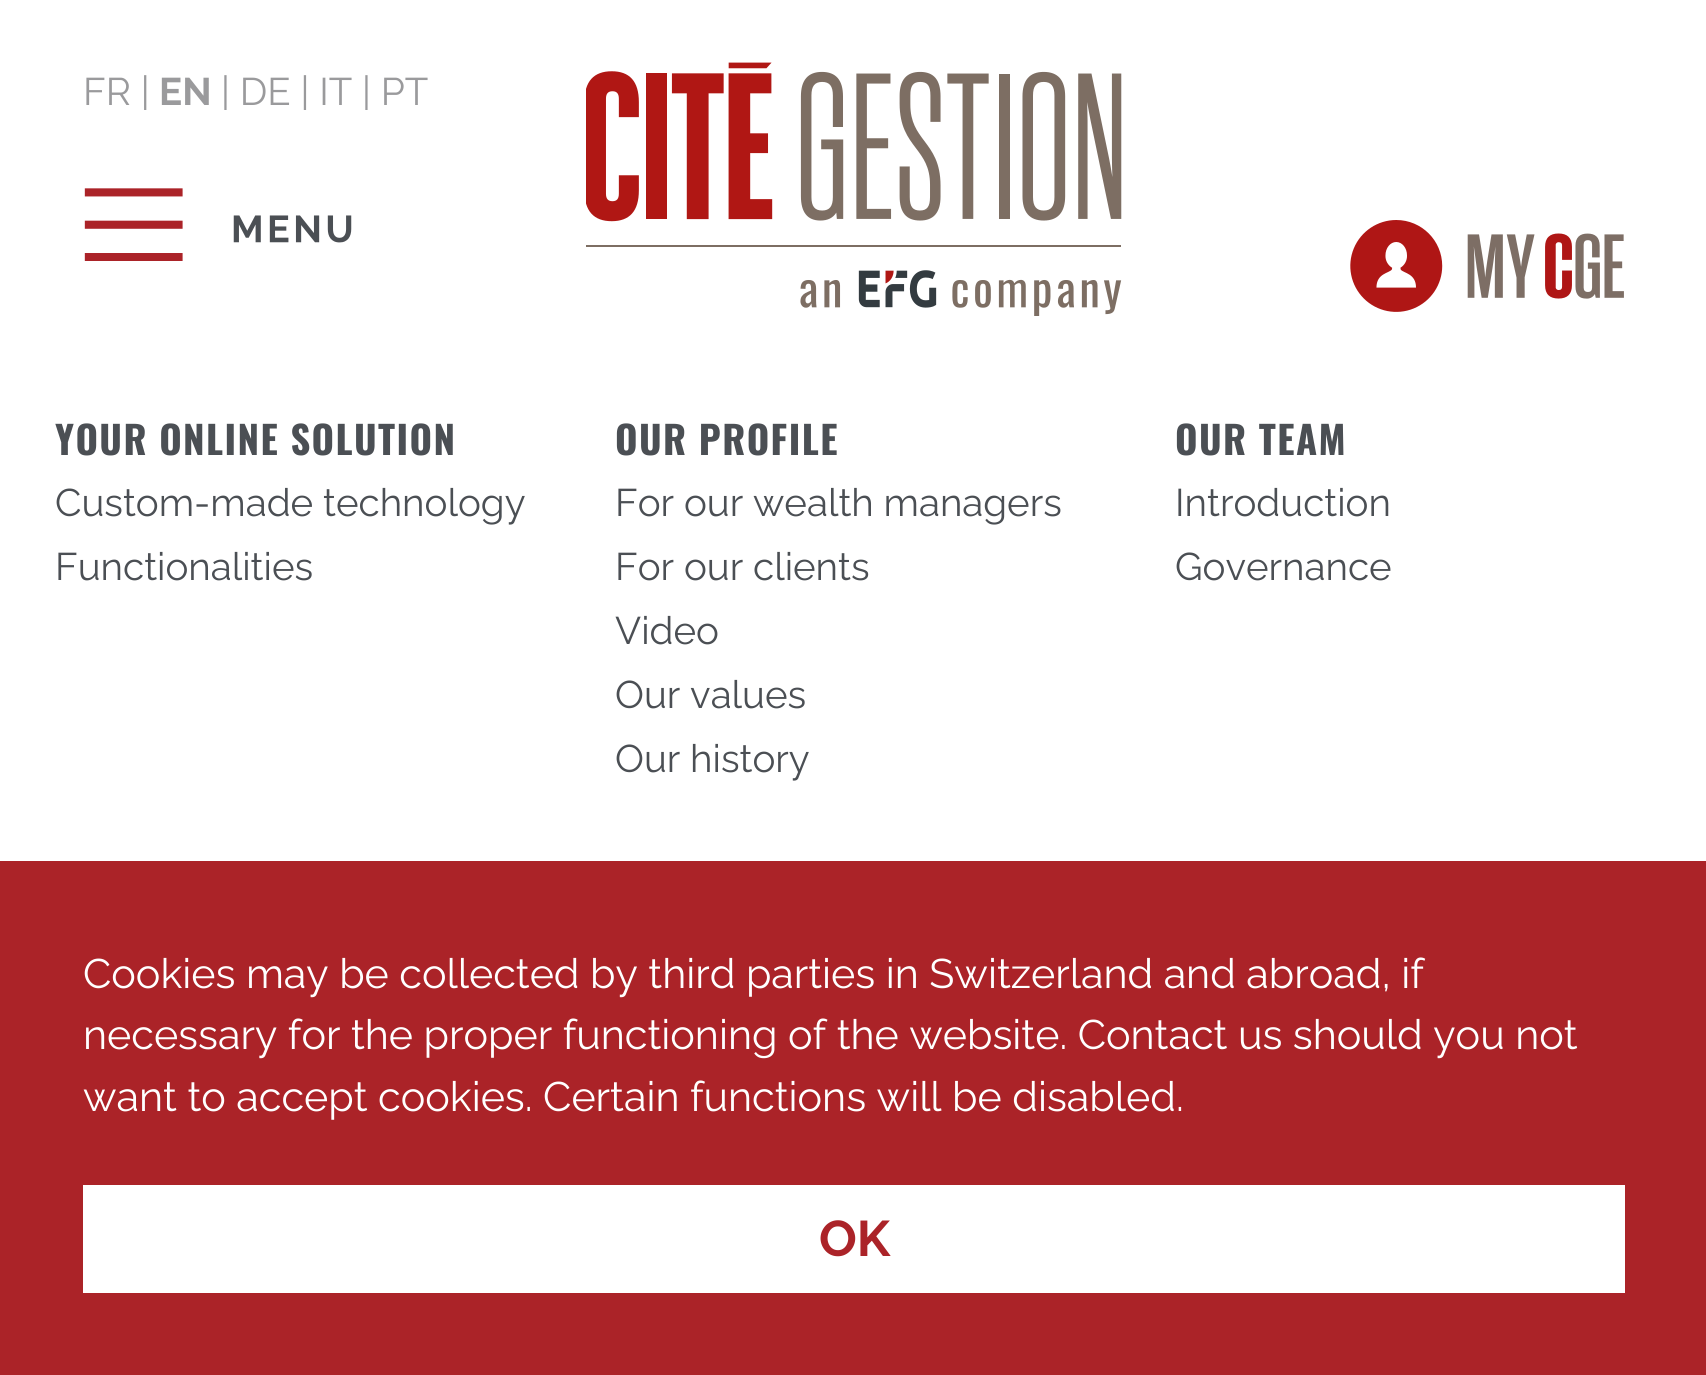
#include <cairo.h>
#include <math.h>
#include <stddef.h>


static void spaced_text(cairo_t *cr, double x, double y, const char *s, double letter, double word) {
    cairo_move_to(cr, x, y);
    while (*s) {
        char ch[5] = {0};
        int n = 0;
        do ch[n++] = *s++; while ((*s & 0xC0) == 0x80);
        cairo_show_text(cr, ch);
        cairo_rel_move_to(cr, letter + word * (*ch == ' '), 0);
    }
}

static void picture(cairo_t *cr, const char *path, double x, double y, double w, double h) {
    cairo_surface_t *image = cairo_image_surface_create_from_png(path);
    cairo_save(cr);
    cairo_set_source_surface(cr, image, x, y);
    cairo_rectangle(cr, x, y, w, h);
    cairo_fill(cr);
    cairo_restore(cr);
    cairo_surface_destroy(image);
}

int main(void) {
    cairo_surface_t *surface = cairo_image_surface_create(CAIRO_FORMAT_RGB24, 1706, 1375);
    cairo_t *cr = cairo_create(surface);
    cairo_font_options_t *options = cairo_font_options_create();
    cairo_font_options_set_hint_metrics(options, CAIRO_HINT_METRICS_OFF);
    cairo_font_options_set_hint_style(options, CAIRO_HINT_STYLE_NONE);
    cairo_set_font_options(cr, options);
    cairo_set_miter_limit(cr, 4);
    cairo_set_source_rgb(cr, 1, 1, 1);
    cairo_paint(cr);
    cairo_select_font_face(cr, "Raleway", CAIRO_FONT_SLANT_NORMAL, CAIRO_FONT_WEIGHT_NORMAL);
    cairo_set_font_size(cr, 38.5);
    cairo_set_source_rgb(cr, 0.604, 0.604, 0.612);
    cairo_move_to(cr, 83, 105);
    cairo_show_text(cr, "FR |");
    cairo_select_font_face(cr, "Raleway", CAIRO_FONT_SLANT_NORMAL, CAIRO_FONT_WEIGHT_BOLD);
    cairo_move_to(cr, 159, 105);
    cairo_show_text(cr, "EN");
    cairo_select_font_face(cr, "Raleway", CAIRO_FONT_SLANT_NORMAL, CAIRO_FONT_WEIGHT_NORMAL);
    cairo_move_to(cr, 221, 105);
    cairo_show_text(cr, "| DE | IT | PT");
    picture(cr, "img1.png", 586, 62, 536, 254);
    picture(cr, "img2.png", 84, 188, 268, 73);
    picture(cr, "img3.png", 1350, 220, 274, 92);
    cairo_select_font_face(cr, "Oswald", CAIRO_FONT_SLANT_NORMAL, CAIRO_FONT_WEIGHT_BOLD);
    cairo_set_source_rgb(cr, 0.294, 0.31, 0.329);
    spaced_text(cr, 55, 455, "YOUR ONLINE SOLUTION", 1.4, 0);
    cairo_select_font_face(cr, "Raleway", CAIRO_FONT_SLANT_NORMAL, CAIRO_FONT_WEIGHT_NORMAL);
    cairo_move_to(cr, 55, 516);
    cairo_show_text(cr, "Custom-made technology");
    cairo_move_to(cr, 55, 580);
    cairo_show_text(cr, "Functionalities");
    cairo_select_font_face(cr, "Oswald", CAIRO_FONT_SLANT_NORMAL, CAIRO_FONT_WEIGHT_BOLD);
    spaced_text(cr, 615, 455, "OUR PROFILE", 1.4, 0);
    cairo_select_font_face(cr, "Raleway", CAIRO_FONT_SLANT_NORMAL, CAIRO_FONT_WEIGHT_NORMAL);
    cairo_move_to(cr, 615, 516);
    cairo_show_text(cr, "For our wealth managers");
    cairo_move_to(cr, 615, 580);
    cairo_show_text(cr, "For our clients");
    cairo_move_to(cr, 615, 644);
    cairo_show_text(cr, "Video");
    cairo_move_to(cr, 615, 708);
    cairo_show_text(cr, "Our values");
    cairo_move_to(cr, 615, 772);
    cairo_show_text(cr, "Our history");
    cairo_select_font_face(cr, "Oswald", CAIRO_FONT_SLANT_NORMAL, CAIRO_FONT_WEIGHT_BOLD);
    spaced_text(cr, 1175, 455, "OUR TEAM", 1.4, 0);
    cairo_select_font_face(cr, "Raleway", CAIRO_FONT_SLANT_NORMAL, CAIRO_FONT_WEIGHT_NORMAL);
    cairo_move_to(cr, 1175, 516);
    cairo_show_text(cr, "Introduction");
    cairo_move_to(cr, 1175, 580);
    cairo_show_text(cr, "Governance");
    cairo_set_source_rgb(cr, 0.671, 0.137, 0.157);
    cairo_rectangle(cr, 0, 861, 1706, 514);
    cairo_fill(cr);
    cairo_set_font_size(cr, 41.25);
    cairo_set_source_rgb(cr, 1, 1, 1);
    cairo_move_to(cr, 83, 988);
    cairo_show_text(cr, "Cookies may be collected by third parties in Switzerland and abroad, if");
    cairo_move_to(cr, 83, 1049);
    cairo_show_text(cr, "necessary for the proper functioning of the website. Contact us should you not");
    cairo_move_to(cr, 83, 1111);
    cairo_show_text(cr, "want to accept cookies. Certain functions will be disabled.");
    cairo_rectangle(cr, 83, 1185, 1542, 108);
    cairo_fill(cr);
    cairo_select_font_face(cr, "Raleway", CAIRO_FONT_SLANT_NORMAL, CAIRO_FONT_WEIGHT_BOLD);
    cairo_set_font_size(cr, 50);
    cairo_set_source_rgb(cr, 0.671, 0.137, 0.157);
    cairo_move_to(cr, 819, 1256);
    cairo_show_text(cr, "OK");
    cairo_surface_write_to_png(surface, "page.png");
    cairo_font_options_destroy(options);
    cairo_destroy(cr);
    cairo_surface_destroy(surface);
    return 0;
}
